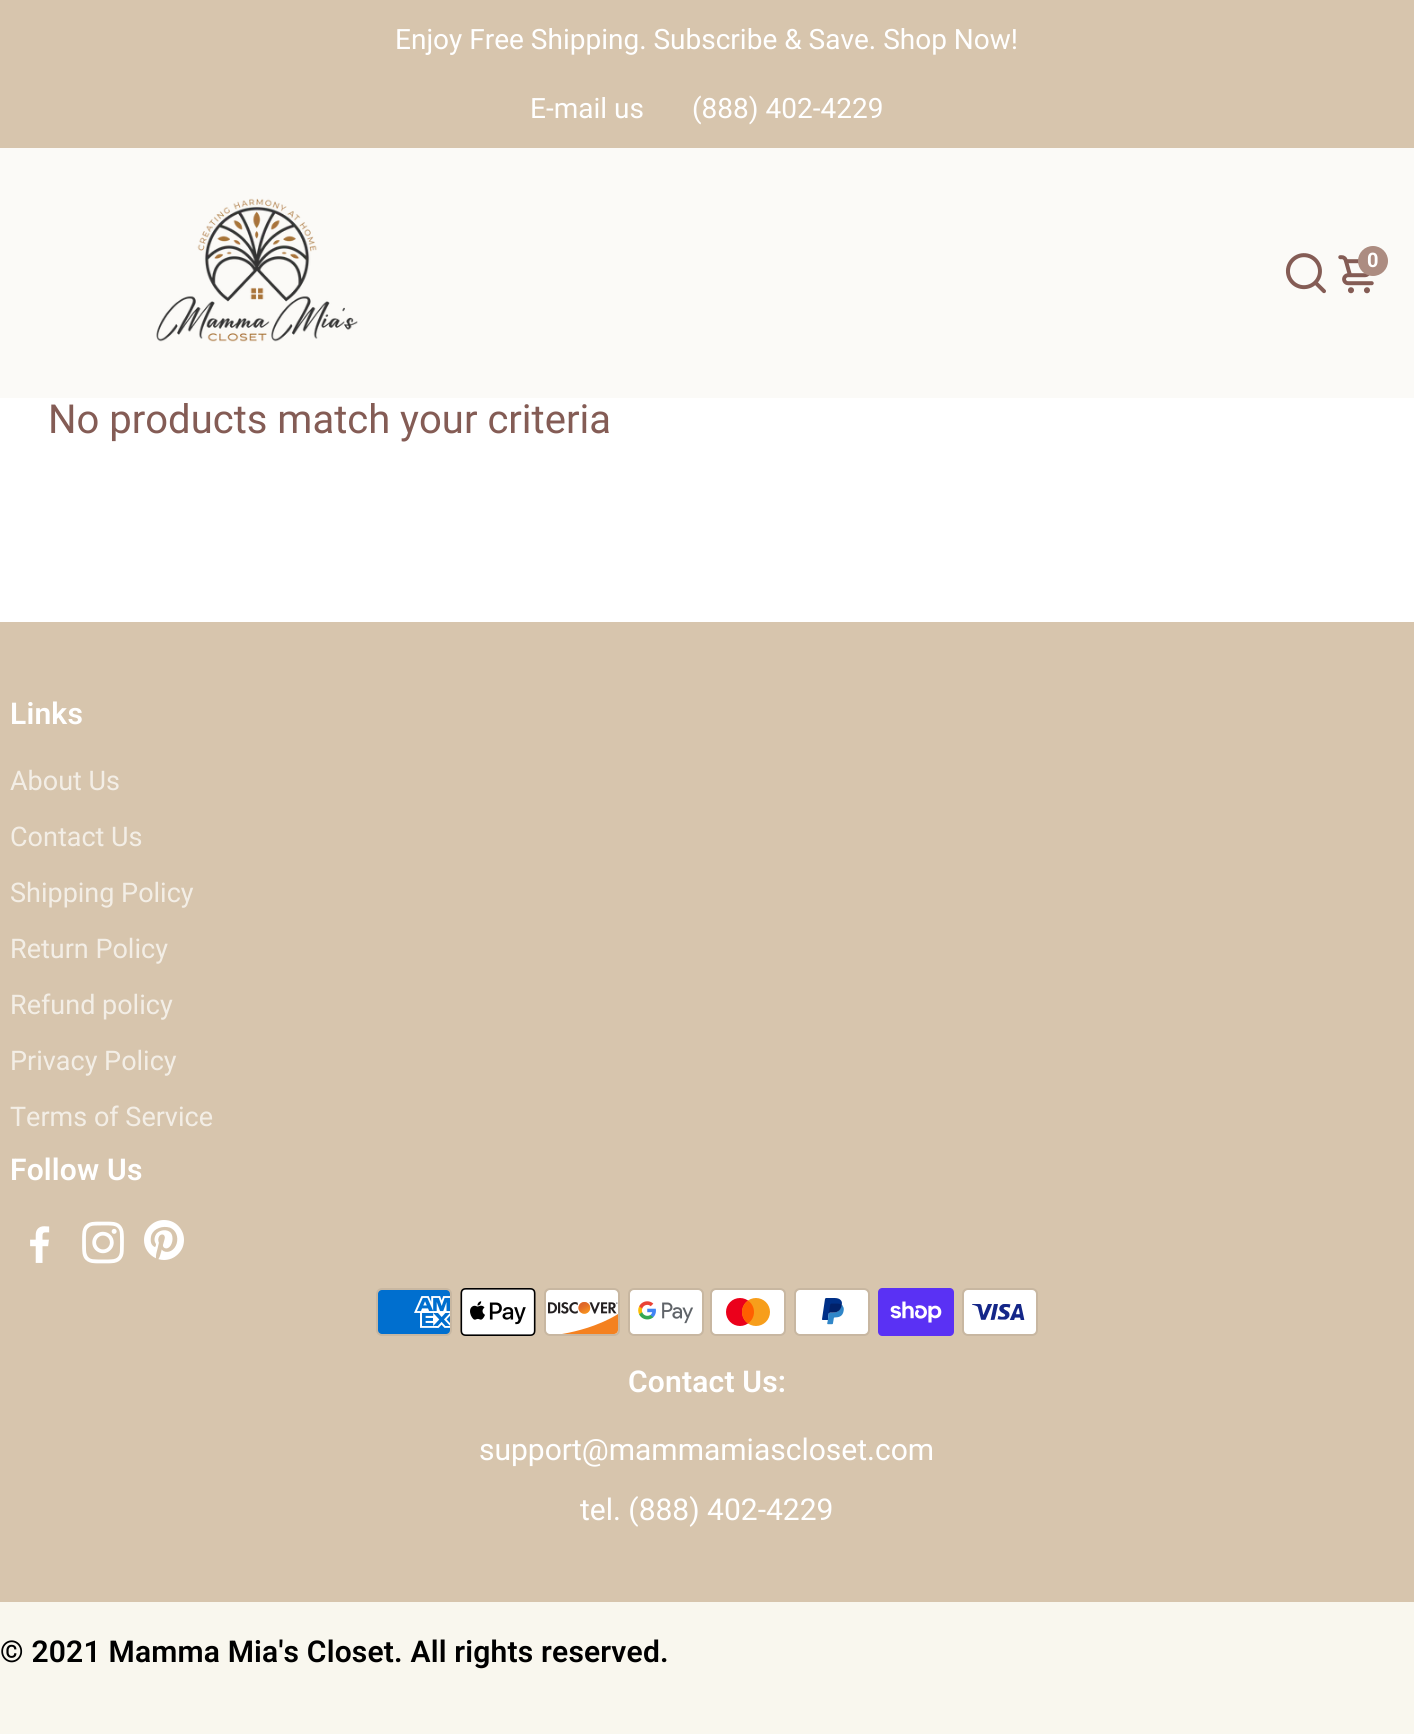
#include <cairo.h>
#include <math.h>
#include <stddef.h>


static void spaced_text(cairo_t *cr, double x, double y, const char *s, double letter, double word) {
    cairo_move_to(cr, x, y);
    while (*s) {
        char ch[5] = {0};
        int n = 0;
        do ch[n++] = *s++; while ((*s & 0xC0) == 0x80);
        cairo_show_text(cr, ch);
        cairo_rel_move_to(cr, letter + word * (*ch == ' '), 0);
    }
}

static void picture(cairo_t *cr, const char *path, double x, double y, double w, double h) {
    cairo_surface_t *image = cairo_image_surface_create_from_png(path);
    cairo_save(cr);
    cairo_set_source_surface(cr, image, x, y);
    cairo_rectangle(cr, x, y, w, h);
    cairo_fill(cr);
    cairo_restore(cr);
    cairo_surface_destroy(image);
}

int main(void) {
    cairo_surface_t *surface = cairo_image_surface_create(CAIRO_FORMAT_RGB24, 1414, 1734);
    cairo_t *cr = cairo_create(surface);
    cairo_font_options_t *options = cairo_font_options_create();
    cairo_font_options_set_hint_metrics(options, CAIRO_HINT_METRICS_OFF);
    cairo_font_options_set_hint_style(options, CAIRO_HINT_STYLE_NONE);
    cairo_set_font_options(cr, options);
    cairo_set_miter_limit(cr, 4);
    cairo_set_source_rgb(cr, 1, 1, 1);
    cairo_paint(cr);
    cairo_set_source_rgb(cr, 0.843, 0.773, 0.678);
    cairo_rectangle(cr, 0, 0, 1414, 148);
    cairo_fill(cr);
    cairo_select_font_face(cr, "Roboto", CAIRO_FONT_SLANT_NORMAL, CAIRO_FONT_WEIGHT_NORMAL);
    cairo_set_font_size(cr, 28);
    cairo_set_source_rgb(cr, 1, 1, 1);
    cairo_move_to(cr, 395, 49);
    cairo_show_text(cr, "Enjoy Free Shipping. Subscribe & Save. Shop Now!");
    cairo_move_to(cr, 530, 118);
    cairo_show_text(cr, "E-mail us");
    cairo_move_to(cr, 692, 118);
    cairo_show_text(cr, "(888) 402-4229");
    cairo_set_source_rgb(cr, 0.984, 0.98, 0.965);
    cairo_rectangle(cr, 0, 148, 1414, 250);
    cairo_fill(cr);
    picture(cr, "img1.png", 156, 198, 202, 144);
    picture(cr, "img2.png", 1285, 253, 41, 41);
    picture(cr, "img3.png", 1338, 255, 36, 39);
    cairo_set_source_rgb(cr, 0.675, 0.549, 0.506);
    cairo_arc(cr, 1373, 261, 15, 0, 2 * M_PI);
    cairo_fill(cr);
    cairo_select_font_face(cr, "Roboto", CAIRO_FONT_SLANT_NORMAL, CAIRO_FONT_WEIGHT_BOLD);
    cairo_set_font_size(cr, 20);
    cairo_set_source_rgb(cr, 1, 1, 1);
    cairo_move_to(cr, 1367, 267);
    cairo_show_text(cr, "0");
    cairo_select_font_face(cr, "Roboto", CAIRO_FONT_SLANT_NORMAL, CAIRO_FONT_WEIGHT_NORMAL);
    cairo_set_font_size(cr, 40);
    cairo_set_source_rgb(cr, 0.518, 0.361, 0.333);
    cairo_move_to(cr, 48, 433);
    cairo_show_text(cr, "No products match your criteria");
    cairo_set_source_rgb(cr, 0.843, 0.773, 0.678);
    cairo_rectangle(cr, 0, 622, 1414, 980);
    cairo_fill(cr);
    cairo_select_font_face(cr, "Roboto SemiBold", CAIRO_FONT_SLANT_NORMAL, CAIRO_FONT_WEIGHT_NORMAL);
    cairo_set_font_size(cr, 30);
    cairo_set_source_rgb(cr, 1, 1, 1);
    spaced_text(cr, 10, 724, "Links", 0.2, 0);
    cairo_select_font_face(cr, "Roboto", CAIRO_FONT_SLANT_NORMAL, CAIRO_FONT_WEIGHT_NORMAL);
    cairo_set_font_size(cr, 27);
    cairo_set_source_rgb(cr, 0.953, 0.933, 0.902);
    cairo_move_to(cr, 10, 790);
    cairo_show_text(cr, "About Us");
    cairo_move_to(cr, 10, 846);
    cairo_show_text(cr, "Contact Us");
    cairo_move_to(cr, 10, 902);
    cairo_show_text(cr, "Shipping Policy");
    cairo_move_to(cr, 10, 958);
    cairo_show_text(cr, "Return Policy");
    cairo_move_to(cr, 10, 1014);
    cairo_show_text(cr, "Refund policy");
    cairo_move_to(cr, 10, 1070);
    cairo_show_text(cr, "Privacy Policy");
    cairo_move_to(cr, 10, 1126);
    cairo_show_text(cr, "Terms of Service");
    cairo_select_font_face(cr, "Roboto SemiBold", CAIRO_FONT_SLANT_NORMAL, CAIRO_FONT_WEIGHT_NORMAL);
    cairo_set_font_size(cr, 30);
    cairo_set_source_rgb(cr, 1, 1, 1);
    spaced_text(cr, 10, 1180, "Follow Us", 0.2, 0);
    picture(cr, "img4.png", 30, 1226, 20, 37);
    picture(cr, "img5.png", 82, 1221, 42, 43);
    picture(cr, "img6.png", 144, 1220, 40, 40);
    picture(cr, "img7.png", 376, 1288, 76, 48);
    picture(cr, "img8.png", 460, 1288, 76, 48);
    picture(cr, "img9.png", 544, 1288, 76, 48);
    picture(cr, "img10.png", 628, 1288, 76, 48);
    picture(cr, "img11.png", 710, 1288, 76, 48);
    picture(cr, "img12.png", 794, 1288, 76, 48);
    picture(cr, "img13.png", 878, 1288, 76, 48);
    picture(cr, "img14.png", 962, 1288, 76, 48);
    spaced_text(cr, 628, 1392, "Contact Us:", 0.2, 0);
    cairo_select_font_face(cr, "Roboto", CAIRO_FONT_SLANT_NORMAL, CAIRO_FONT_WEIGHT_NORMAL);
    cairo_move_to(cr, 479, 1460);
    cairo_show_text(cr, "support@mammamiascloset.com");
    cairo_move_to(cr, 580, 1520);
    cairo_show_text(cr, "tel. (888) 402-4229");
    cairo_set_source_rgb(cr, 0.976, 0.965, 0.933);
    cairo_rectangle(cr, 0, 1602, 1414, 132);
    cairo_fill(cr);
    cairo_select_font_face(cr, "Roboto SemiBold", CAIRO_FONT_SLANT_NORMAL, CAIRO_FONT_WEIGHT_NORMAL);
    cairo_set_source_rgb(cr, 0, 0, 0);
    spaced_text(cr, 0, 1662, "© 2021 Mamma Mia's Closet. All rights reserved.", 0.2, 0);
    cairo_surface_write_to_png(surface, "page.png");
    cairo_font_options_destroy(options);
    cairo_destroy(cr);
    cairo_surface_destroy(surface);
    return 0;
}
